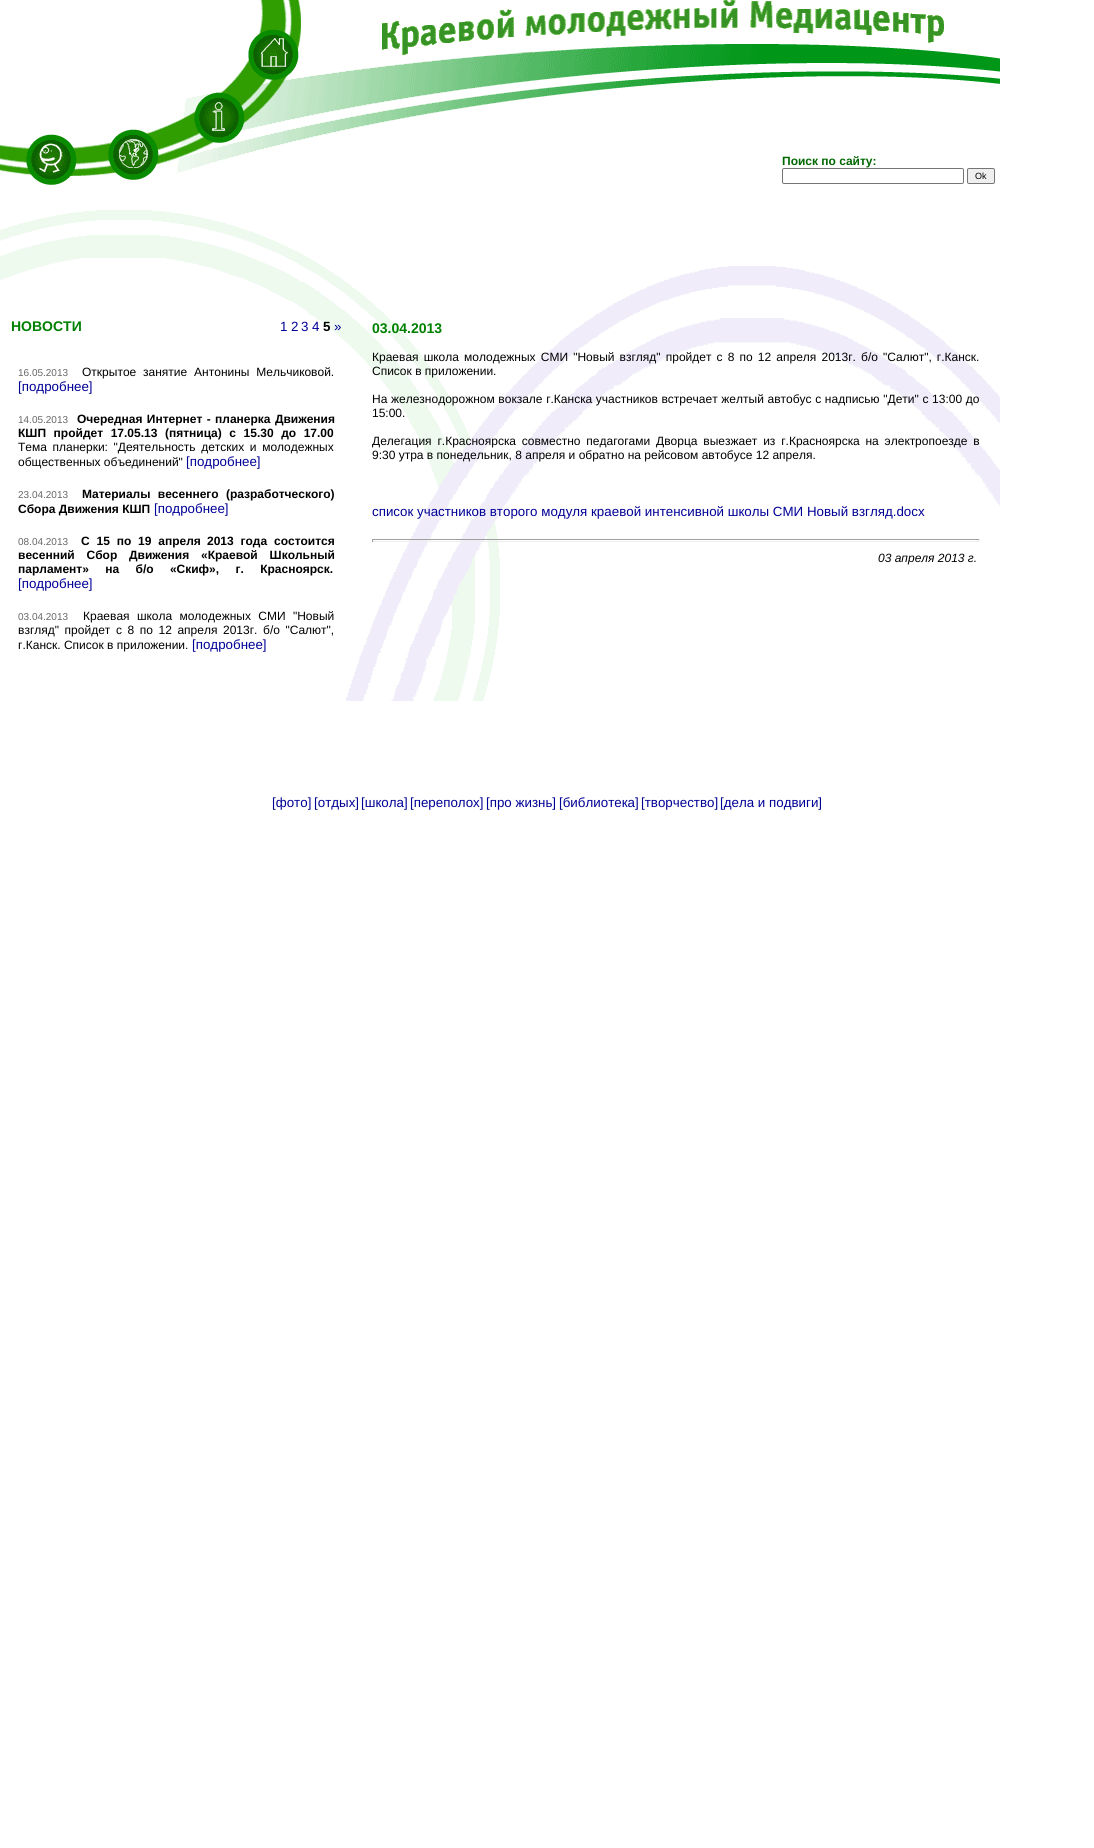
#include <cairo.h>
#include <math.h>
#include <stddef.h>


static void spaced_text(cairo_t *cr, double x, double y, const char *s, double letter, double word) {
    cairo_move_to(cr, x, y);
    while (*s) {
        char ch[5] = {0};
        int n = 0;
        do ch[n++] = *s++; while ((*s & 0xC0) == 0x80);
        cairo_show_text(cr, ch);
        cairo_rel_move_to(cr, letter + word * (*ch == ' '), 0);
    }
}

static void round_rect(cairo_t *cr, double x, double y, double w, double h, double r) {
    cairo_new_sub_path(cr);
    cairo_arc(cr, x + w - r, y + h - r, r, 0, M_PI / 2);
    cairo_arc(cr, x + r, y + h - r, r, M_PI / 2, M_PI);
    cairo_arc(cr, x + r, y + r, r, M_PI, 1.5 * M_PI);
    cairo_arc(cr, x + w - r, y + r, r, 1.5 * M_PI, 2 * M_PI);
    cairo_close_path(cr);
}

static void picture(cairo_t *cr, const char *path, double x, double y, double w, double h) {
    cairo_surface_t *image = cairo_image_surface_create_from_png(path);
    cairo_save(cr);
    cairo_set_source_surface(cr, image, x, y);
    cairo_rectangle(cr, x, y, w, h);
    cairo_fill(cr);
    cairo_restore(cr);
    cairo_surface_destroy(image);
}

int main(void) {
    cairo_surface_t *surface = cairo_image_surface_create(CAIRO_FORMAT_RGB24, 1094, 1848);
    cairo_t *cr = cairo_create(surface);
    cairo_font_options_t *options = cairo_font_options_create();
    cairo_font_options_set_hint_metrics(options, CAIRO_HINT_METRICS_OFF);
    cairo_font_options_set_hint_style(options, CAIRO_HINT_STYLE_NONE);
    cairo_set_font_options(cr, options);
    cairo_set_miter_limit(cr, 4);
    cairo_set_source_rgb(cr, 1, 1, 1);
    cairo_paint(cr);
    picture(cr, "img1.png", 0, 210, 1000, 491);
    picture(cr, "img2.png", 0, 0, 1000, 185);
    cairo_select_font_face(cr, "Liberation Sans", CAIRO_FONT_SLANT_NORMAL, CAIRO_FONT_WEIGHT_BOLD);
    cairo_set_font_size(cr, 12);
    cairo_set_source_rgb(cr, 0, 0.4, 0);
    cairo_move_to(cr, 782, 165);
    cairo_show_text(cr, "Поиск по сайту:");
    round_rect(cr, 782.5, 168.5, 181, 15, 1.5);
    cairo_set_source_rgb(cr, 0.463, 0.463, 0.463);
    cairo_set_line_width(cr, 1);
    cairo_stroke(cr);
    cairo_set_source_rgb(cr, 0.937, 0.937, 0.937);
    round_rect(cr, 967.5, 168.5, 27, 15, 1.5);
    cairo_fill_preserve(cr);
    cairo_set_source_rgb(cr, 0.463, 0.463, 0.463);
    cairo_stroke(cr);
    cairo_select_font_face(cr, "Liberation Sans", CAIRO_FONT_SLANT_NORMAL, CAIRO_FONT_WEIGHT_NORMAL);
    cairo_set_font_size(cr, 9);
    cairo_set_source_rgb(cr, 0, 0, 0);
    cairo_move_to(cr, 975, 179);
    cairo_show_text(cr, "Ok");
    cairo_select_font_face(cr, "Liberation Sans", CAIRO_FONT_SLANT_NORMAL, CAIRO_FONT_WEIGHT_BOLD);
    cairo_set_font_size(cr, 14);
    cairo_set_source_rgb(cr, 0, 0.502, 0);
    cairo_move_to(cr, 11, 331);
    cairo_show_text(cr, "НОВОСТИ");
    cairo_select_font_face(cr, "Liberation Sans", CAIRO_FONT_SLANT_NORMAL, CAIRO_FONT_WEIGHT_NORMAL);
    cairo_set_font_size(cr, 13.35);
    cairo_set_source_rgb(cr, 0, 0, 0.588);
    cairo_move_to(cr, 280, 331);
    cairo_show_text(cr, "1");
    cairo_move_to(cr, 291, 331);
    cairo_show_text(cr, "2");
    cairo_move_to(cr, 301, 331);
    cairo_show_text(cr, "3");
    cairo_move_to(cr, 312, 331);
    cairo_show_text(cr, "4");
    cairo_select_font_face(cr, "Liberation Sans", CAIRO_FONT_SLANT_NORMAL, CAIRO_FONT_WEIGHT_BOLD);
    cairo_set_source_rgb(cr, 0, 0, 0);
    cairo_move_to(cr, 323, 331);
    cairo_show_text(cr, "5");
    cairo_select_font_face(cr, "Liberation Sans", CAIRO_FONT_SLANT_NORMAL, CAIRO_FONT_WEIGHT_NORMAL);
    cairo_set_source_rgb(cr, 0, 0, 0.588);
    cairo_move_to(cr, 334, 331);
    cairo_show_text(cr, "»");
    cairo_set_font_size(cr, 10);
    cairo_set_source_rgb(cr, 0.4, 0.4, 0.4);
    cairo_move_to(cr, 18, 376);
    cairo_show_text(cr, "16.05.2013");
    cairo_set_font_size(cr, 12);
    cairo_set_source_rgb(cr, 0, 0, 0);
    spaced_text(cr, 82, 376, "Открытое занятие Антонины Мельчиковой.", 0, 3.5);
    cairo_set_font_size(cr, 13.35);
    cairo_set_source_rgb(cr, 0, 0, 0.588);
    cairo_move_to(cr, 18, 391);
    cairo_show_text(cr, "[подробнее]");
    cairo_set_font_size(cr, 10);
    cairo_set_source_rgb(cr, 0.4, 0.4, 0.4);
    cairo_move_to(cr, 18, 423);
    cairo_show_text(cr, "14.05.2013");
    cairo_select_font_face(cr, "Liberation Sans", CAIRO_FONT_SLANT_NORMAL, CAIRO_FONT_WEIGHT_BOLD);
    cairo_set_font_size(cr, 12);
    cairo_set_source_rgb(cr, 0, 0, 0);
    spaced_text(cr, 77, 423, "Очередная Интернет - планерка Движения", 0, 1);
    spaced_text(cr, 18, 437, "КШП пройдет 17.05.13 (пятница) с 15.30 до 17.00", 0, 4.25);
    cairo_select_font_face(cr, "Liberation Sans", CAIRO_FONT_SLANT_NORMAL, CAIRO_FONT_WEIGHT_NORMAL);
    spaced_text(cr, 18, 451, "Тема планерки: \"Деятельность детских и молодежных", 0, 2.25);
    cairo_move_to(cr, 18, 466);
    cairo_show_text(cr, "общественных объединений\"");
    cairo_set_font_size(cr, 13.35);
    cairo_set_source_rgb(cr, 0, 0, 0.588);
    cairo_move_to(cr, 186, 466);
    cairo_show_text(cr, "[подробнее]");
    cairo_set_font_size(cr, 10);
    cairo_set_source_rgb(cr, 0.4, 0.4, 0.4);
    cairo_move_to(cr, 18, 498);
    cairo_show_text(cr, "23.04.2013");
    cairo_select_font_face(cr, "Liberation Sans", CAIRO_FONT_SLANT_NORMAL, CAIRO_FONT_WEIGHT_BOLD);
    cairo_set_font_size(cr, 12);
    cairo_set_source_rgb(cr, 0, 0, 0);
    spaced_text(cr, 82, 498, "Материалы весеннего (разработческого)", 0, 4);
    cairo_move_to(cr, 18, 513);
    cairo_show_text(cr, "Сбора Движения КШП");
    cairo_select_font_face(cr, "Liberation Sans", CAIRO_FONT_SLANT_NORMAL, CAIRO_FONT_WEIGHT_NORMAL);
    cairo_set_font_size(cr, 13.35);
    cairo_set_source_rgb(cr, 0, 0, 0.588);
    cairo_move_to(cr, 154, 513);
    cairo_show_text(cr, "[подробнее]");
    cairo_set_font_size(cr, 10);
    cairo_set_source_rgb(cr, 0.4, 0.4, 0.4);
    cairo_move_to(cr, 18, 545);
    cairo_show_text(cr, "08.04.2013");
    cairo_select_font_face(cr, "Liberation Sans", CAIRO_FONT_SLANT_NORMAL, CAIRO_FONT_WEIGHT_BOLD);
    cairo_set_font_size(cr, 12);
    cairo_set_source_rgb(cr, 0, 0, 0);
    spaced_text(cr, 81, 545, "C 15 по 19 апреля", 0, 3.5);
    spaced_text(cr, 207, 545, "2013 года состоится", 0, 3.5);
    spaced_text(cr, 18, 559, "весенний Сбор Движения «Краевой Школьный", 0, 8.5);
    spaced_text(cr, 18, 573, "парламент» на б/о «Скиф», г. Красноярск.", 0, 13);
    cairo_select_font_face(cr, "Liberation Sans", CAIRO_FONT_SLANT_NORMAL, CAIRO_FONT_WEIGHT_NORMAL);
    cairo_set_font_size(cr, 13.35);
    cairo_set_source_rgb(cr, 0, 0, 0.588);
    cairo_move_to(cr, 18, 588);
    cairo_show_text(cr, "[подробнее]");
    cairo_set_font_size(cr, 10);
    cairo_set_source_rgb(cr, 0.4, 0.4, 0.4);
    cairo_move_to(cr, 18, 620);
    cairo_show_text(cr, "03.04.2013");
    cairo_set_font_size(cr, 12);
    cairo_set_source_rgb(cr, 0, 0, 0);
    spaced_text(cr, 83, 620, "Краевая школа молодежных СМИ \"Новый", 0, 4);
    spaced_text(cr, 18, 634, "взгляд\" пройдет с 8 по 12 апреля 2013г. б/о \"Салют\",", 0, 2.25);
    cairo_move_to(cr, 18, 649);
    cairo_show_text(cr, "г.Канск. Список в приложении.");
    cairo_set_font_size(cr, 13.35);
    cairo_set_source_rgb(cr, 0, 0, 0.588);
    cairo_move_to(cr, 192, 649);
    cairo_show_text(cr, "[подробнее]");
    cairo_select_font_face(cr, "Liberation Sans", CAIRO_FONT_SLANT_NORMAL, CAIRO_FONT_WEIGHT_BOLD);
    cairo_set_font_size(cr, 14);
    cairo_set_source_rgb(cr, 0, 0.502, 0);
    cairo_move_to(cr, 372, 333);
    cairo_show_text(cr, "03.04.2013");
    cairo_select_font_face(cr, "Liberation Sans", CAIRO_FONT_SLANT_NORMAL, CAIRO_FONT_WEIGHT_NORMAL);
    cairo_set_font_size(cr, 12);
    cairo_set_source_rgb(cr, 0, 0, 0);
    spaced_text(cr, 372, 361, "Краевая школа молодежных СМИ \"Новый взгляд\" пройдет с 8 по 12 апреля 2013г. б/о \"Салют\", г.Канск.", 0, 1.8);
    cairo_move_to(cr, 372, 375);
    cairo_show_text(cr, "Список в приложении.");
    spaced_text(cr, 372, 403, "На железнодорожном вокзале г.Канска участников встречает желтый автобус с надписью \"Дети\" с 13:00 до", 0, 0.3);
    cairo_move_to(cr, 372, 417);
    cairo_show_text(cr, "15:00.");
    spaced_text(cr, 372, 445, "Делегация г.Красноярска совместно педагогами Дворца выезжает из г.Красноярска на электропоезде в", 0, 2.5);
    cairo_move_to(cr, 372, 459);
    cairo_show_text(cr, "9:30 утра в понедельник, 8 апреля и обратно на рейсовом автобусе 12 апреля.");
    cairo_set_font_size(cr, 13.35);
    cairo_set_source_rgb(cr, 0, 0, 0.588);
    cairo_move_to(cr, 372, 516);
    cairo_show_text(cr, "список участников второго модуля краевой интенсивной школы СМИ Новый взгляд.docx");
    cairo_set_source_rgb(cr, 0.624, 0.624, 0.624);
    cairo_rectangle(cr, 372, 539, 608, 1);
    cairo_fill(cr);
    cairo_set_source_rgb(cr, 0.933, 0.933, 0.933);
    cairo_rectangle(cr, 979, 539, 1, 3);
    cairo_fill(cr);
    cairo_rectangle(cr, 372, 541, 608, 1);
    cairo_fill(cr);
    cairo_set_source_rgb(cr, 0.624, 0.624, 0.624);
    cairo_rectangle(cr, 372, 539, 1, 3);
    cairo_fill(cr);
    cairo_select_font_face(cr, "Liberation Sans", CAIRO_FONT_SLANT_ITALIC, CAIRO_FONT_WEIGHT_NORMAL);
    cairo_set_font_size(cr, 12);
    cairo_set_source_rgb(cr, 0, 0, 0);
    cairo_move_to(cr, 878, 562);
    cairo_show_text(cr, "03 апреля 2013 г.");
    cairo_select_font_face(cr, "Liberation Sans", CAIRO_FONT_SLANT_NORMAL, CAIRO_FONT_WEIGHT_NORMAL);
    cairo_set_font_size(cr, 13.35);
    cairo_set_source_rgb(cr, 0, 0, 0.588);
    cairo_move_to(cr, 272, 807);
    cairo_show_text(cr, "[фото]");
    cairo_move_to(cr, 314, 807);
    cairo_show_text(cr, "[отдых]");
    cairo_move_to(cr, 361, 807);
    cairo_show_text(cr, "[школа]");
    cairo_move_to(cr, 410, 807);
    cairo_show_text(cr, "[переполох]");
    cairo_move_to(cr, 486, 807);
    cairo_show_text(cr, "[про жизнь]");
    cairo_move_to(cr, 559, 807);
    cairo_show_text(cr, "[библиотека]");
    cairo_move_to(cr, 641, 807);
    cairo_show_text(cr, "[творчество]");
    cairo_move_to(cr, 720, 807);
    cairo_show_text(cr, "[дела и подвиги]");
    cairo_surface_write_to_png(surface, "page.png");
    cairo_font_options_destroy(options);
    cairo_destroy(cr);
    cairo_surface_destroy(surface);
    return 0;
}
